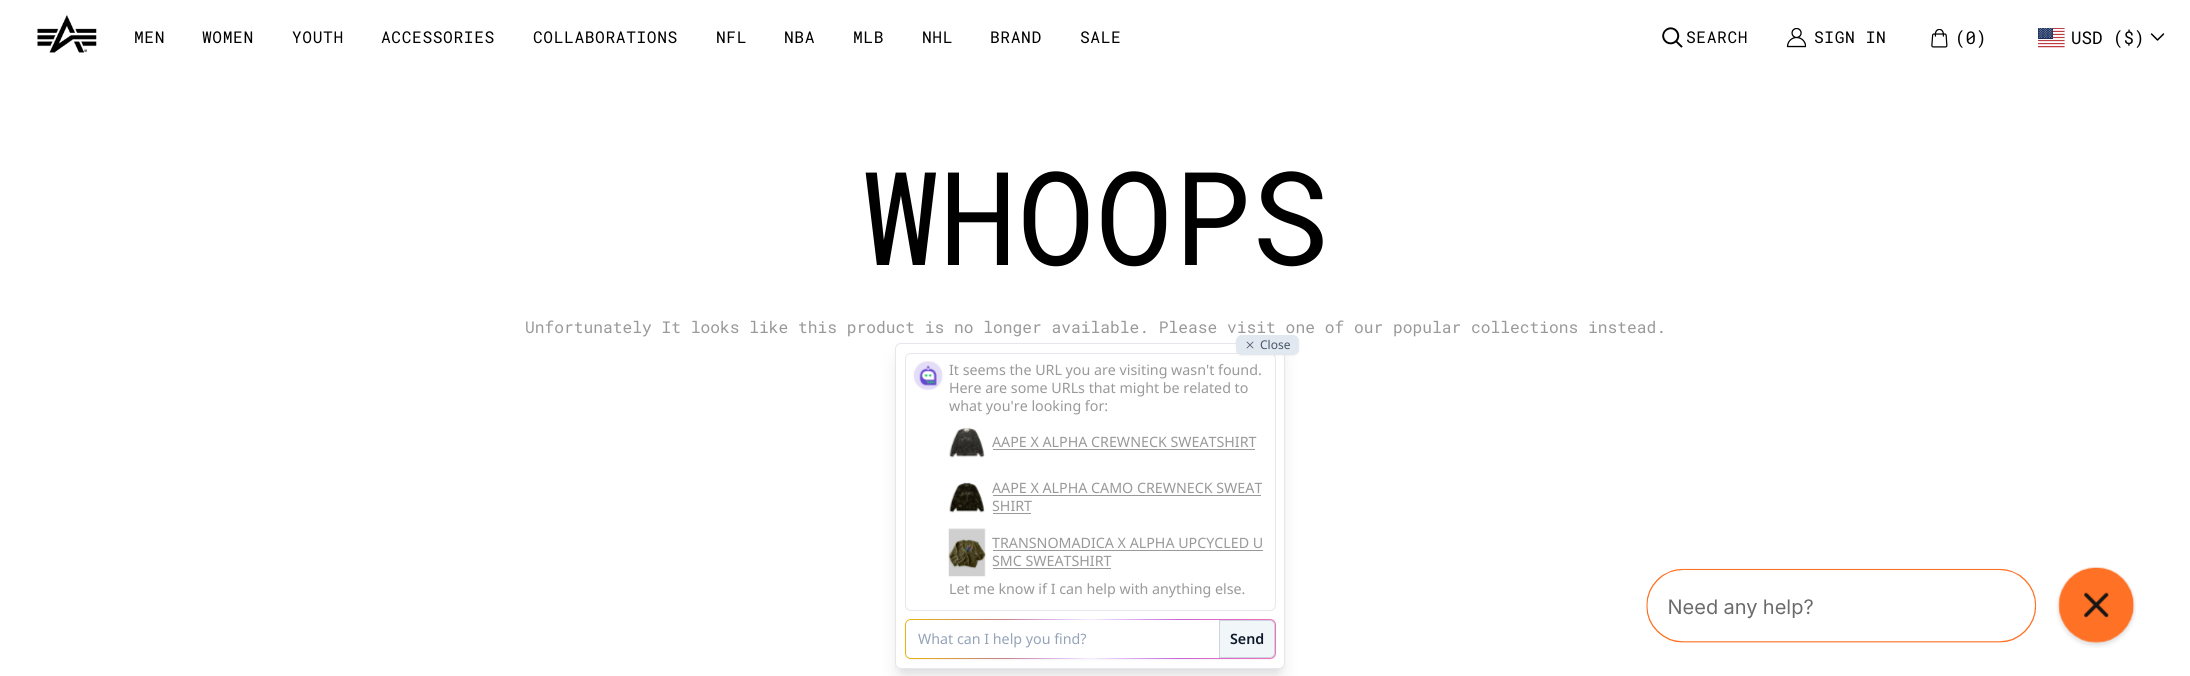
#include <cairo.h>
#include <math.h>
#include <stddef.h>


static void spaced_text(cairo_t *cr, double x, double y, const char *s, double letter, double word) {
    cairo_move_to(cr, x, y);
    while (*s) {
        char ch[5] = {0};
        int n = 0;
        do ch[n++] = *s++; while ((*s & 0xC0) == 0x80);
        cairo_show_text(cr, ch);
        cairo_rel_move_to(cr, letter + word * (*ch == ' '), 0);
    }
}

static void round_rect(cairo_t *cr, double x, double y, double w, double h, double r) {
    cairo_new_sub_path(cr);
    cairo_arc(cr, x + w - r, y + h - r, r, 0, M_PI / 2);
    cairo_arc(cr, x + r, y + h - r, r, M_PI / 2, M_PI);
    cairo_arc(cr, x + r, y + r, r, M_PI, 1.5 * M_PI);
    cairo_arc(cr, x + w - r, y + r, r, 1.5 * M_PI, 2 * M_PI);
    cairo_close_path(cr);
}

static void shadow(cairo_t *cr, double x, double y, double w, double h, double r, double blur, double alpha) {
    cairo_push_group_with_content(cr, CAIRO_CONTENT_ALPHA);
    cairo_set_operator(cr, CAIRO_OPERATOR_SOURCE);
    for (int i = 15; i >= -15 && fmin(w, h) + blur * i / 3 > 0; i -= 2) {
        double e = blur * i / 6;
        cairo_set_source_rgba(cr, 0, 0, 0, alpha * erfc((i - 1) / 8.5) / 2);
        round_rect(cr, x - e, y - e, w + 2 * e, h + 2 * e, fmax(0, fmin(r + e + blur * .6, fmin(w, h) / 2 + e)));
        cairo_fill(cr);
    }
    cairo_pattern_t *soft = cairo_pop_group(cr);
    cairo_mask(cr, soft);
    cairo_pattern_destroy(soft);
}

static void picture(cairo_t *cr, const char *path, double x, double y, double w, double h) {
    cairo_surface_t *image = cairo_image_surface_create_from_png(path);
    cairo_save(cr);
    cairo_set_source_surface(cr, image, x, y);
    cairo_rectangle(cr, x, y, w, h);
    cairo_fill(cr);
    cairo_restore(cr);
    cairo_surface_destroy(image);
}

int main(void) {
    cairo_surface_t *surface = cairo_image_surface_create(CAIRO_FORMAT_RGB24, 2190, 676);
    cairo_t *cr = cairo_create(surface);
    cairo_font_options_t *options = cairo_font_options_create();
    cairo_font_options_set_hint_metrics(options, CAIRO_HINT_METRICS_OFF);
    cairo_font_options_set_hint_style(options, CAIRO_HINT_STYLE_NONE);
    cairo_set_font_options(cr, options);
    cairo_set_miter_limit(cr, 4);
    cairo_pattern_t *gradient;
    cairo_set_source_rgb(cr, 1, 1, 1);
    cairo_paint(cr);
    picture(cr, "img1.png", 37, 15, 60, 38);
    cairo_select_font_face(cr, "Roboto Mono", CAIRO_FONT_SLANT_NORMAL, CAIRO_FONT_WEIGHT_NORMAL);
    cairo_set_font_size(cr, 16.25);
    cairo_set_source_rgb(cr, 0, 0, 0);
    spaced_text(cr, 134, 43, "MEN", 0.6, 0);
    spaced_text(cr, 202, 43, "WOMEN", 0.6, 0);
    spaced_text(cr, 292, 43, "YOUTH", 0.6, 0);
    spaced_text(cr, 381, 43, "ACCESSORIES", 0.6, 0);
    spaced_text(cr, 533, 43, "COLLABORATIONS", 0.6, 0);
    spaced_text(cr, 716, 43, "NFL", 0.6, 0);
    spaced_text(cr, 784, 43, "NBA", 0.6, 0);
    spaced_text(cr, 853, 43, "MLB", 0.6, 0);
    spaced_text(cr, 922, 43, "NHL", 0.6, 0);
    spaced_text(cr, 990, 43, "BRAND", 0.6, 0);
    spaced_text(cr, 1080, 43, "SALE", 0.6, 0);
    picture(cr, "img2.png", 1662, 27, 21, 21);
    spaced_text(cr, 1686, 43, "SEARCH", 0.6, 0);
    picture(cr, "img3.png", 1786, 28, 20, 20);
    spaced_text(cr, 1814, 43, "SIGN IN", 0.6, 0);
    picture(cr, "img4.png", 1931, 29, 17, 19);
    cairo_set_font_size(cr, 17.5);
    cairo_move_to(cr, 1955, 44);
    cairo_show_text(cr, "(0)");
    picture(cr, "img5.png", 2038, 28, 27, 20);
    cairo_move_to(cr, 2071, 44);
    cairo_show_text(cr, "USD ($)");
    picture(cr, "img6.png", 2150, 33, 15, 8);
    cairo_set_font_size(cr, 130);
    cairo_move_to(cr, 861, 265);
    cairo_show_text(cr, "WHOOPS");
    cairo_set_font_size(cr, 16.25);
    cairo_set_source_rgb(cr, 0.6, 0.6, 0.6);
    cairo_move_to(cr, 525, 333);
    cairo_show_text(cr, "Unfortunately It looks like this product is no longer available. Please visit one of our popular collections instead.");
    cairo_set_source_rgb(cr, 0, 0, 0);
    shadow(cr, 900, 353, 380, 316, 1, 4, 0.1);
    shadow(cr, 899, 359, 382, 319, 2.5, 9.5, 0.1);
    cairo_set_source_rgb(cr, 1, 1, 1);
    round_rect(cr, 895.5, 343.5, 389, 325, 5.5);
    cairo_fill_preserve(cr);
    cairo_set_source_rgb(cr, 0.898, 0.906, 0.922);
    cairo_set_line_width(cr, 1);
    cairo_stroke(cr);
    round_rect(cr, 905.5, 353.5, 370, 257, 5.5);
    cairo_stroke(cr);
    cairo_set_source_rgb(cr, 0, 0, 0);
    shadow(cr, 1236, 336, 63, 20, 6, 1, 0.05);
    cairo_set_source_rgb(cr, 0.886, 0.91, 0.941);
    round_rect(cr, 1236, 335, 63, 20, 6);
    cairo_fill(cr);
    cairo_new_path(cr);
    cairo_move_to(cr, 1247, 348);
    cairo_line_to(cr, 1253, 342);
    cairo_move_to(cr, 1247, 342);
    cairo_line_to(cr, 1253, 348);
    cairo_set_source_rgb(cr, 0.278, 0.333, 0.412);
    cairo_set_line_width(cr, 0.8);
    cairo_set_line_cap(cr, CAIRO_LINE_CAP_ROUND);
    cairo_set_line_join(cr, CAIRO_LINE_JOIN_ROUND);
    cairo_stroke(cr);
    cairo_select_font_face(cr, "Noto Sans", CAIRO_FONT_SLANT_NORMAL, CAIRO_FONT_WEIGHT_NORMAL);
    cairo_set_font_size(cr, 12);
    cairo_move_to(cr, 1260, 349);
    cairo_show_text(cr, "Close");
    picture(cr, "img7.png", 913, 361, 30, 30);
    cairo_set_font_size(cr, 14.25);
    cairo_set_source_rgb(cr, 0.6, 0.6, 0.6);
    cairo_move_to(cr, 949, 375);
    cairo_show_text(cr, "It seems the URL you are visiting wasn't found.");
    cairo_move_to(cr, 949, 393);
    cairo_show_text(cr, "Here are some URLs that might be related to");
    cairo_move_to(cr, 949, 411);
    cairo_show_text(cr, "what you're looking for:");
    picture(cr, "img8.png", 949, 427, 36, 31);
    cairo_move_to(cr, 992, 447);
    cairo_show_text(cr, "AAPE X ALPHA CREWNECK SWEATSHIRT");
    cairo_rectangle(cr, 993, 449, 262, 1);
    cairo_fill(cr);
    picture(cr, "img9.png", 949, 482, 36, 31);
    cairo_move_to(cr, 992, 493);
    cairo_show_text(cr, "AAPE X ALPHA CAMO CREWNECK SWEAT");
    cairo_rectangle(cr, 993, 495, 268, 1);
    cairo_fill(cr);
    cairo_move_to(cr, 992, 511);
    cairo_show_text(cr, "SHIRT");
    cairo_rectangle(cr, 993, 513, 38, 1);
    cairo_fill(cr);
    picture(cr, "img10.png", 948, 528, 38, 49);
    cairo_move_to(cr, 992, 548);
    cairo_show_text(cr, "TRANSNOMADICA X ALPHA UPCYCLED U");
    cairo_rectangle(cr, 993, 550, 270, 1);
    cairo_fill(cr);
    cairo_move_to(cr, 992, 566);
    cairo_show_text(cr, "SMC SWEATSHIRT");
    cairo_rectangle(cr, 993, 568, 118, 1);
    cairo_fill(cr);
    cairo_move_to(cr, 949, 594);
    cairo_show_text(cr, "Let me know if I can help with anything else.");
    cairo_set_source_rgb(cr, 0, 0, 0);
    shadow(cr, 905, 620, 371, 40, 6, 1, 0.05);
    gradient = cairo_pattern_create_linear(905, 639, 1276, 639);
    cairo_pattern_add_color_stop_rgba(gradient, 0, 0.918, 0.702, 0.031, 1);
    cairo_pattern_add_color_stop_rgba(gradient, 0.5, 0.659, 0.333, 0.969, 1);
    cairo_pattern_add_color_stop_rgba(gradient, 1, 0.957, 0.447, 0.714, 1);
    cairo_set_source(cr, gradient);
    cairo_pattern_destroy(gradient);
    round_rect(cr, 905, 619, 371, 40, 6);
    cairo_fill(cr);
    gradient = cairo_pattern_create_linear(1003, 639, 1179, 639);
    cairo_pattern_add_color_stop_rgba(gradient, 0, 1, 1, 1, 0);
    cairo_pattern_add_color_stop_rgba(gradient, 0.5, 1, 1, 1, 0.9);
    cairo_pattern_add_color_stop_rgba(gradient, 1, 1, 1, 1, 0);
    cairo_set_source(cr, gradient);
    cairo_pattern_destroy(gradient);
    cairo_rectangle(cr, 1005, 619, 172, 40);
    cairo_fill(cr);
    cairo_set_source_rgb(cr, 1, 1, 1);
    cairo_new_path(cr);
    cairo_move_to(cr, 911, 620);
    cairo_line_to(cr, 1220, 620);
    cairo_line_to(cr, 1220, 658);
    cairo_line_to(cr, 911, 658);
    cairo_curve_to(cr, 908, 658, 906, 656, 906, 653);
    cairo_line_to(cr, 906, 625);
    cairo_curve_to(cr, 906, 622, 908, 620, 911, 620);
    cairo_close_path(cr);
    cairo_fill(cr);
    cairo_set_source_rgb(cr, 0.58, 0.639, 0.722);
    cairo_move_to(cr, 918, 644);
    cairo_show_text(cr, "What can I help you find?");
    cairo_set_source_rgb(cr, 0.945, 0.961, 0.976);
    cairo_new_path(cr);
    cairo_move_to(cr, 1219.5, 620.5);
    cairo_line_to(cr, 1270, 620.5);
    cairo_curve_to(cr, 1272.5, 620.5, 1274.5, 622.5, 1274.5, 625);
    cairo_line_to(cr, 1274.5, 653);
    cairo_curve_to(cr, 1274.5, 655.5, 1272.5, 657.5, 1270, 657.5);
    cairo_line_to(cr, 1219.5, 657.5);
    cairo_close_path(cr);
    cairo_fill_preserve(cr);
    cairo_set_source_rgb(cr, 0.796, 0.835, 0.882);
    cairo_set_line_width(cr, 1);
    cairo_set_line_cap(cr, CAIRO_LINE_CAP_BUTT);
    cairo_set_line_join(cr, CAIRO_LINE_JOIN_MITER);
    cairo_stroke(cr);
    cairo_select_font_face(cr, "Noto Sans SemiBold", CAIRO_FONT_SLANT_NORMAL, CAIRO_FONT_WEIGHT_NORMAL);
    cairo_set_source_rgb(cr, 0.059, 0.09, 0.165);
    cairo_move_to(cr, 1230, 644);
    cairo_show_text(cr, "Send");
    picture(cr, "img11.png", 1646, 567, 490, 81);
    cairo_surface_write_to_png(surface, "page.png");
    cairo_font_options_destroy(options);
    cairo_destroy(cr);
    cairo_surface_destroy(surface);
    return 0;
}
